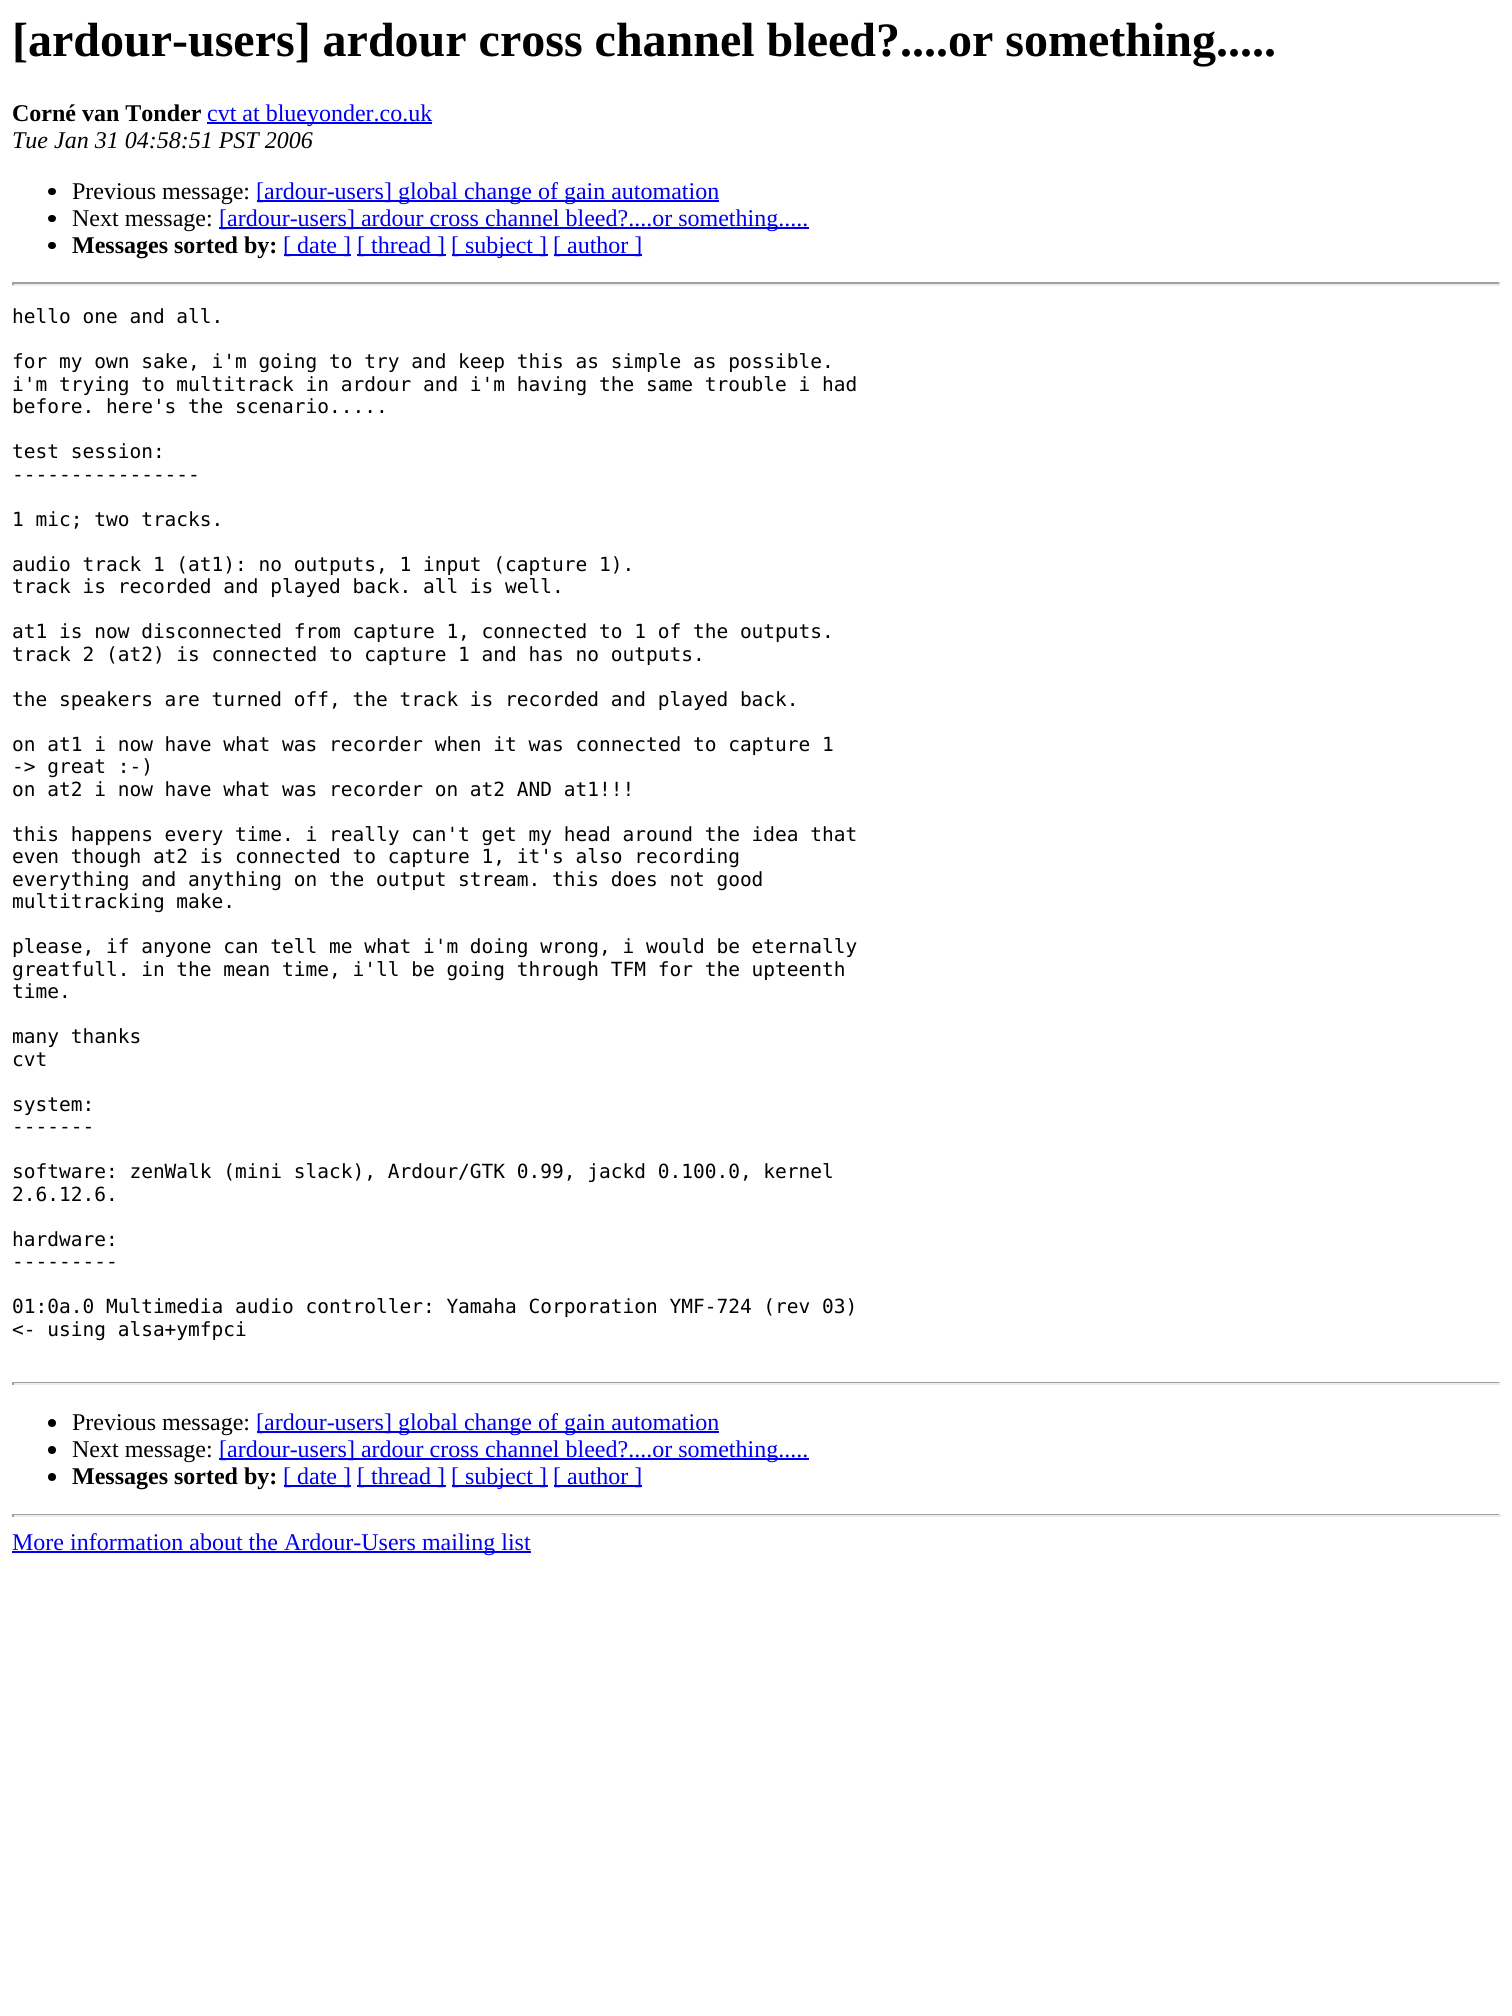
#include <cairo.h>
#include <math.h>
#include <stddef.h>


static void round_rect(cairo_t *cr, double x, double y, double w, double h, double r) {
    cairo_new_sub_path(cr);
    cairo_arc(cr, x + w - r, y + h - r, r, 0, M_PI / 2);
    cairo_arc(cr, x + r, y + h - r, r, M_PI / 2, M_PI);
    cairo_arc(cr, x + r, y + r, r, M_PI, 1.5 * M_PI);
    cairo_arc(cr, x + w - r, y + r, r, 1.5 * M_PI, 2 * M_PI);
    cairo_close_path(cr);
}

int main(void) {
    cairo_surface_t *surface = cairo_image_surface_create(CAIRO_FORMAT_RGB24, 1512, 2016);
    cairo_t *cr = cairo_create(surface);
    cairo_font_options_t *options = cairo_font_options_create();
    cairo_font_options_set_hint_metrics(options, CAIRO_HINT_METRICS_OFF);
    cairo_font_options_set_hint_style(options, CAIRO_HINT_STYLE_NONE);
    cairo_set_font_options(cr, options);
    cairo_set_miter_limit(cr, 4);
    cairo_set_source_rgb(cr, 1, 1, 1);
    cairo_paint(cr);
    cairo_select_font_face(cr, "Liberation Serif", CAIRO_FONT_SLANT_NORMAL, CAIRO_FONT_WEIGHT_BOLD);
    cairo_set_font_size(cr, 48);
    cairo_set_source_rgb(cr, 0, 0, 0);
    cairo_move_to(cr, 12, 56);
    cairo_show_text(cr, "[ardour-users] ardour cross channel bleed?....or something.....");
    cairo_set_font_size(cr, 24);
    cairo_move_to(cr, 12, 121);
    cairo_show_text(cr, "Corné van Tonder");
    cairo_set_source_rgb(cr, 0, 0, 0.933);
    cairo_rectangle(cr, 207, 122, 225, 2);
    cairo_fill(cr);
    cairo_select_font_face(cr, "Liberation Serif", CAIRO_FONT_SLANT_NORMAL, CAIRO_FONT_WEIGHT_NORMAL);
    cairo_move_to(cr, 207, 121);
    cairo_show_text(cr, "cvt at blueyonder.co.uk");
    cairo_select_font_face(cr, "Liberation Serif", CAIRO_FONT_SLANT_ITALIC, CAIRO_FONT_WEIGHT_NORMAL);
    cairo_set_source_rgb(cr, 0, 0, 0);
    cairo_move_to(cr, 12, 148);
    cairo_show_text(cr, "Tue Jan 31 04:58:51 PST 2006");
    round_rect(cr, 48, 188, 8, 7, 3.5);
    cairo_fill(cr);
    cairo_select_font_face(cr, "Liberation Serif", CAIRO_FONT_SLANT_NORMAL, CAIRO_FONT_WEIGHT_NORMAL);
    cairo_move_to(cr, 72, 199);
    cairo_show_text(cr, "Previous message:");
    cairo_set_source_rgb(cr, 0, 0, 0.933);
    cairo_rectangle(cr, 257, 200, 462, 2);
    cairo_fill(cr);
    cairo_move_to(cr, 256, 199);
    cairo_show_text(cr, "[ardour-users] global change of gain automation");
    cairo_set_source_rgb(cr, 0, 0, 0);
    round_rect(cr, 48, 215, 8, 7, 3.5);
    cairo_fill(cr);
    cairo_move_to(cr, 72, 226);
    cairo_show_text(cr, "Next message:");
    cairo_set_source_rgb(cr, 0, 0, 0.933);
    cairo_rectangle(cr, 219, 227, 590, 2);
    cairo_fill(cr);
    cairo_move_to(cr, 219, 226);
    cairo_show_text(cr, "[ardour-users] ardour cross channel bleed?....or something.....");
    cairo_set_source_rgb(cr, 0, 0, 0);
    round_rect(cr, 48, 242, 8, 7, 3.5);
    cairo_fill(cr);
    cairo_select_font_face(cr, "Liberation Serif", CAIRO_FONT_SLANT_NORMAL, CAIRO_FONT_WEIGHT_BOLD);
    cairo_move_to(cr, 72, 253);
    cairo_show_text(cr, "Messages sorted by:");
    cairo_set_source_rgb(cr, 0, 0, 0.933);
    cairo_rectangle(cr, 284, 254, 67, 2);
    cairo_fill(cr);
    cairo_select_font_face(cr, "Liberation Serif", CAIRO_FONT_SLANT_NORMAL, CAIRO_FONT_WEIGHT_NORMAL);
    cairo_move_to(cr, 283, 253);
    cairo_show_text(cr, "[ date ]");
    cairo_rectangle(cr, 357, 254, 89, 2);
    cairo_fill(cr);
    cairo_move_to(cr, 357, 253);
    cairo_show_text(cr, "[ thread ]");
    cairo_rectangle(cr, 452, 254, 96, 2);
    cairo_fill(cr);
    cairo_move_to(cr, 451, 253);
    cairo_show_text(cr, "[ subject ]");
    cairo_rectangle(cr, 554, 254, 88, 2);
    cairo_fill(cr);
    cairo_move_to(cr, 553, 253);
    cairo_show_text(cr, "[ author ]");
    cairo_set_source_rgb(cr, 0.624, 0.624, 0.624);
    cairo_rectangle(cr, 12, 282, 1488, 2);
    cairo_fill(cr);
    cairo_set_source_rgb(cr, 0.933, 0.933, 0.933);
    cairo_rectangle(cr, 1499, 282, 2, 3);
    cairo_fill(cr);
    cairo_rectangle(cr, 12, 284, 1488, 2);
    cairo_fill(cr);
    cairo_set_source_rgb(cr, 0.624, 0.624, 0.624);
    cairo_rectangle(cr, 12, 282, 2, 3);
    cairo_fill(cr);
    cairo_select_font_face(cr, "DejaVu Sans Mono", CAIRO_FONT_SLANT_NORMAL, CAIRO_FONT_WEIGHT_NORMAL);
    cairo_set_font_size(cr, 19.5);
    cairo_set_source_rgb(cr, 0, 0, 0);
    cairo_move_to(cr, 12, 323);
    cairo_show_text(cr, "hello one and all.");
    cairo_move_to(cr, 12, 368);
    cairo_show_text(cr, "for my own sake, i'm going to try and keep this as simple as possible.");
    cairo_move_to(cr, 12, 391);
    cairo_show_text(cr, "i'm trying to multitrack in ardour and i'm having the same trouble i had");
    cairo_move_to(cr, 12, 413);
    cairo_show_text(cr, "before. here's the scenario.....");
    cairo_move_to(cr, 12, 458);
    cairo_show_text(cr, "test session:");
    cairo_move_to(cr, 12, 481);
    cairo_show_text(cr, "----------------");
    cairo_move_to(cr, 12, 526);
    cairo_show_text(cr, "1 mic; two tracks.");
    cairo_move_to(cr, 12, 571);
    cairo_show_text(cr, "audio track 1 (at1): no outputs, 1 input (capture 1).");
    cairo_move_to(cr, 12, 593);
    cairo_show_text(cr, "track is recorded and played back. all is well.");
    cairo_move_to(cr, 12, 638);
    cairo_show_text(cr, "at1 is now disconnected from capture 1, connected to 1 of the outputs.");
    cairo_move_to(cr, 12, 661);
    cairo_show_text(cr, "track 2 (at2) is connected to capture 1 and has no outputs.");
    cairo_move_to(cr, 12, 706);
    cairo_show_text(cr, "the speakers are turned off, the track is recorded and played back.");
    cairo_move_to(cr, 12, 751);
    cairo_show_text(cr, "on at1 i now have what was recorder when it was connected to capture 1");
    cairo_move_to(cr, 12, 773);
    cairo_show_text(cr, "-> great :-)");
    cairo_move_to(cr, 12, 796);
    cairo_show_text(cr, "on at2 i now have what was recorder on at2 AND at1!!!");
    cairo_move_to(cr, 12, 841);
    cairo_show_text(cr, "this happens every time. i really can't get my head around the idea that");
    cairo_move_to(cr, 12, 863);
    cairo_show_text(cr, "even though at2 is connected to capture 1, it's also recording");
    cairo_move_to(cr, 12, 886);
    cairo_show_text(cr, "everything and anything on the output stream. this does not good");
    cairo_move_to(cr, 12, 908);
    cairo_show_text(cr, "multitracking make.");
    cairo_move_to(cr, 12, 953);
    cairo_show_text(cr, "please, if anyone can tell me what i'm doing wrong, i would be eternally");
    cairo_move_to(cr, 12, 976);
    cairo_show_text(cr, "greatfull. in the mean time, i'll be going through TFM for the upteenth");
    cairo_move_to(cr, 12, 998);
    cairo_show_text(cr, "time.");
    cairo_move_to(cr, 12, 1043);
    cairo_show_text(cr, "many thanks");
    cairo_move_to(cr, 12, 1066);
    cairo_show_text(cr, "cvt");
    cairo_move_to(cr, 12, 1111);
    cairo_show_text(cr, "system:");
    cairo_move_to(cr, 12, 1133);
    cairo_show_text(cr, "-------");
    cairo_move_to(cr, 12, 1178);
    cairo_show_text(cr, "software: zenWalk (mini slack), Ardour/GTK 0.99, jackd 0.100.0, kernel");
    cairo_move_to(cr, 12, 1201);
    cairo_show_text(cr, "2.6.12.6.");
    cairo_move_to(cr, 12, 1246);
    cairo_show_text(cr, "hardware:");
    cairo_move_to(cr, 12, 1268);
    cairo_show_text(cr, "---------");
    cairo_move_to(cr, 12, 1313);
    cairo_show_text(cr, "01:0a.0 Multimedia audio controller: Yamaha Corporation YMF-724 (rev 03)");
    cairo_move_to(cr, 12, 1336);
    cairo_show_text(cr, "<- using alsa+ymfpci");
    cairo_set_source_rgb(cr, 0.624, 0.624, 0.624);
    cairo_rectangle(cr, 12, 1382, 1488, 1);
    cairo_fill(cr);
    cairo_set_source_rgb(cr, 0.933, 0.933, 0.933);
    cairo_rectangle(cr, 1499, 1382, 2, 3);
    cairo_fill(cr);
    cairo_rectangle(cr, 12, 1383, 1488, 2);
    cairo_fill(cr);
    cairo_set_source_rgb(cr, 0.624, 0.624, 0.624);
    cairo_rectangle(cr, 12, 1382, 2, 3);
    cairo_fill(cr);
    cairo_set_source_rgb(cr, 0, 0, 0);
    cairo_arc(cr, 52, 1423, 4, 0, 2 * M_PI);
    cairo_fill(cr);
    cairo_select_font_face(cr, "Liberation Serif", CAIRO_FONT_SLANT_NORMAL, CAIRO_FONT_WEIGHT_NORMAL);
    cairo_set_font_size(cr, 24);
    cairo_move_to(cr, 72, 1430);
    cairo_show_text(cr, "Previous message:");
    cairo_set_source_rgb(cr, 0, 0, 0.933);
    cairo_rectangle(cr, 257, 1431, 462, 2);
    cairo_fill(cr);
    cairo_move_to(cr, 256, 1430);
    cairo_show_text(cr, "[ardour-users] global change of gain automation");
    cairo_set_source_rgb(cr, 0, 0, 0);
    cairo_new_path(cr);
    cairo_arc(cr, 52, 1450, 4, 0, 2 * M_PI);
    cairo_fill(cr);
    cairo_move_to(cr, 72, 1457);
    cairo_show_text(cr, "Next message:");
    cairo_set_source_rgb(cr, 0, 0, 0.933);
    cairo_rectangle(cr, 219, 1458, 590, 2);
    cairo_fill(cr);
    cairo_move_to(cr, 219, 1457);
    cairo_show_text(cr, "[ardour-users] ardour cross channel bleed?....or something.....");
    cairo_set_source_rgb(cr, 0, 0, 0);
    cairo_new_path(cr);
    cairo_arc(cr, 52, 1477, 4, 0, 2 * M_PI);
    cairo_fill(cr);
    cairo_select_font_face(cr, "Liberation Serif", CAIRO_FONT_SLANT_NORMAL, CAIRO_FONT_WEIGHT_BOLD);
    cairo_move_to(cr, 72, 1484);
    cairo_show_text(cr, "Messages sorted by:");
    cairo_set_source_rgb(cr, 0, 0, 0.933);
    cairo_rectangle(cr, 284, 1485, 67, 2);
    cairo_fill(cr);
    cairo_select_font_face(cr, "Liberation Serif", CAIRO_FONT_SLANT_NORMAL, CAIRO_FONT_WEIGHT_NORMAL);
    cairo_move_to(cr, 283, 1484);
    cairo_show_text(cr, "[ date ]");
    cairo_rectangle(cr, 357, 1485, 89, 2);
    cairo_fill(cr);
    cairo_move_to(cr, 357, 1484);
    cairo_show_text(cr, "[ thread ]");
    cairo_rectangle(cr, 452, 1485, 96, 2);
    cairo_fill(cr);
    cairo_move_to(cr, 451, 1484);
    cairo_show_text(cr, "[ subject ]");
    cairo_rectangle(cr, 554, 1485, 88, 2);
    cairo_fill(cr);
    cairo_move_to(cr, 553, 1484);
    cairo_show_text(cr, "[ author ]");
    cairo_set_source_rgb(cr, 0.624, 0.624, 0.624);
    cairo_rectangle(cr, 12, 1514, 1488, 1);
    cairo_fill(cr);
    cairo_set_source_rgb(cr, 0.933, 0.933, 0.933);
    cairo_rectangle(cr, 1499, 1514, 2, 3);
    cairo_fill(cr);
    cairo_rectangle(cr, 12, 1515, 1488, 2);
    cairo_fill(cr);
    cairo_set_source_rgb(cr, 0.624, 0.624, 0.624);
    cairo_rectangle(cr, 12, 1514, 2, 3);
    cairo_fill(cr);
    cairo_set_source_rgb(cr, 0, 0, 0.933);
    cairo_rectangle(cr, 12, 1551, 519, 2);
    cairo_fill(cr);
    cairo_move_to(cr, 12, 1550);
    cairo_show_text(cr, "More information about the Ardour-Users mailing list");
    cairo_surface_write_to_png(surface, "page.png");
    cairo_font_options_destroy(options);
    cairo_destroy(cr);
    cairo_surface_destroy(surface);
    return 0;
}
